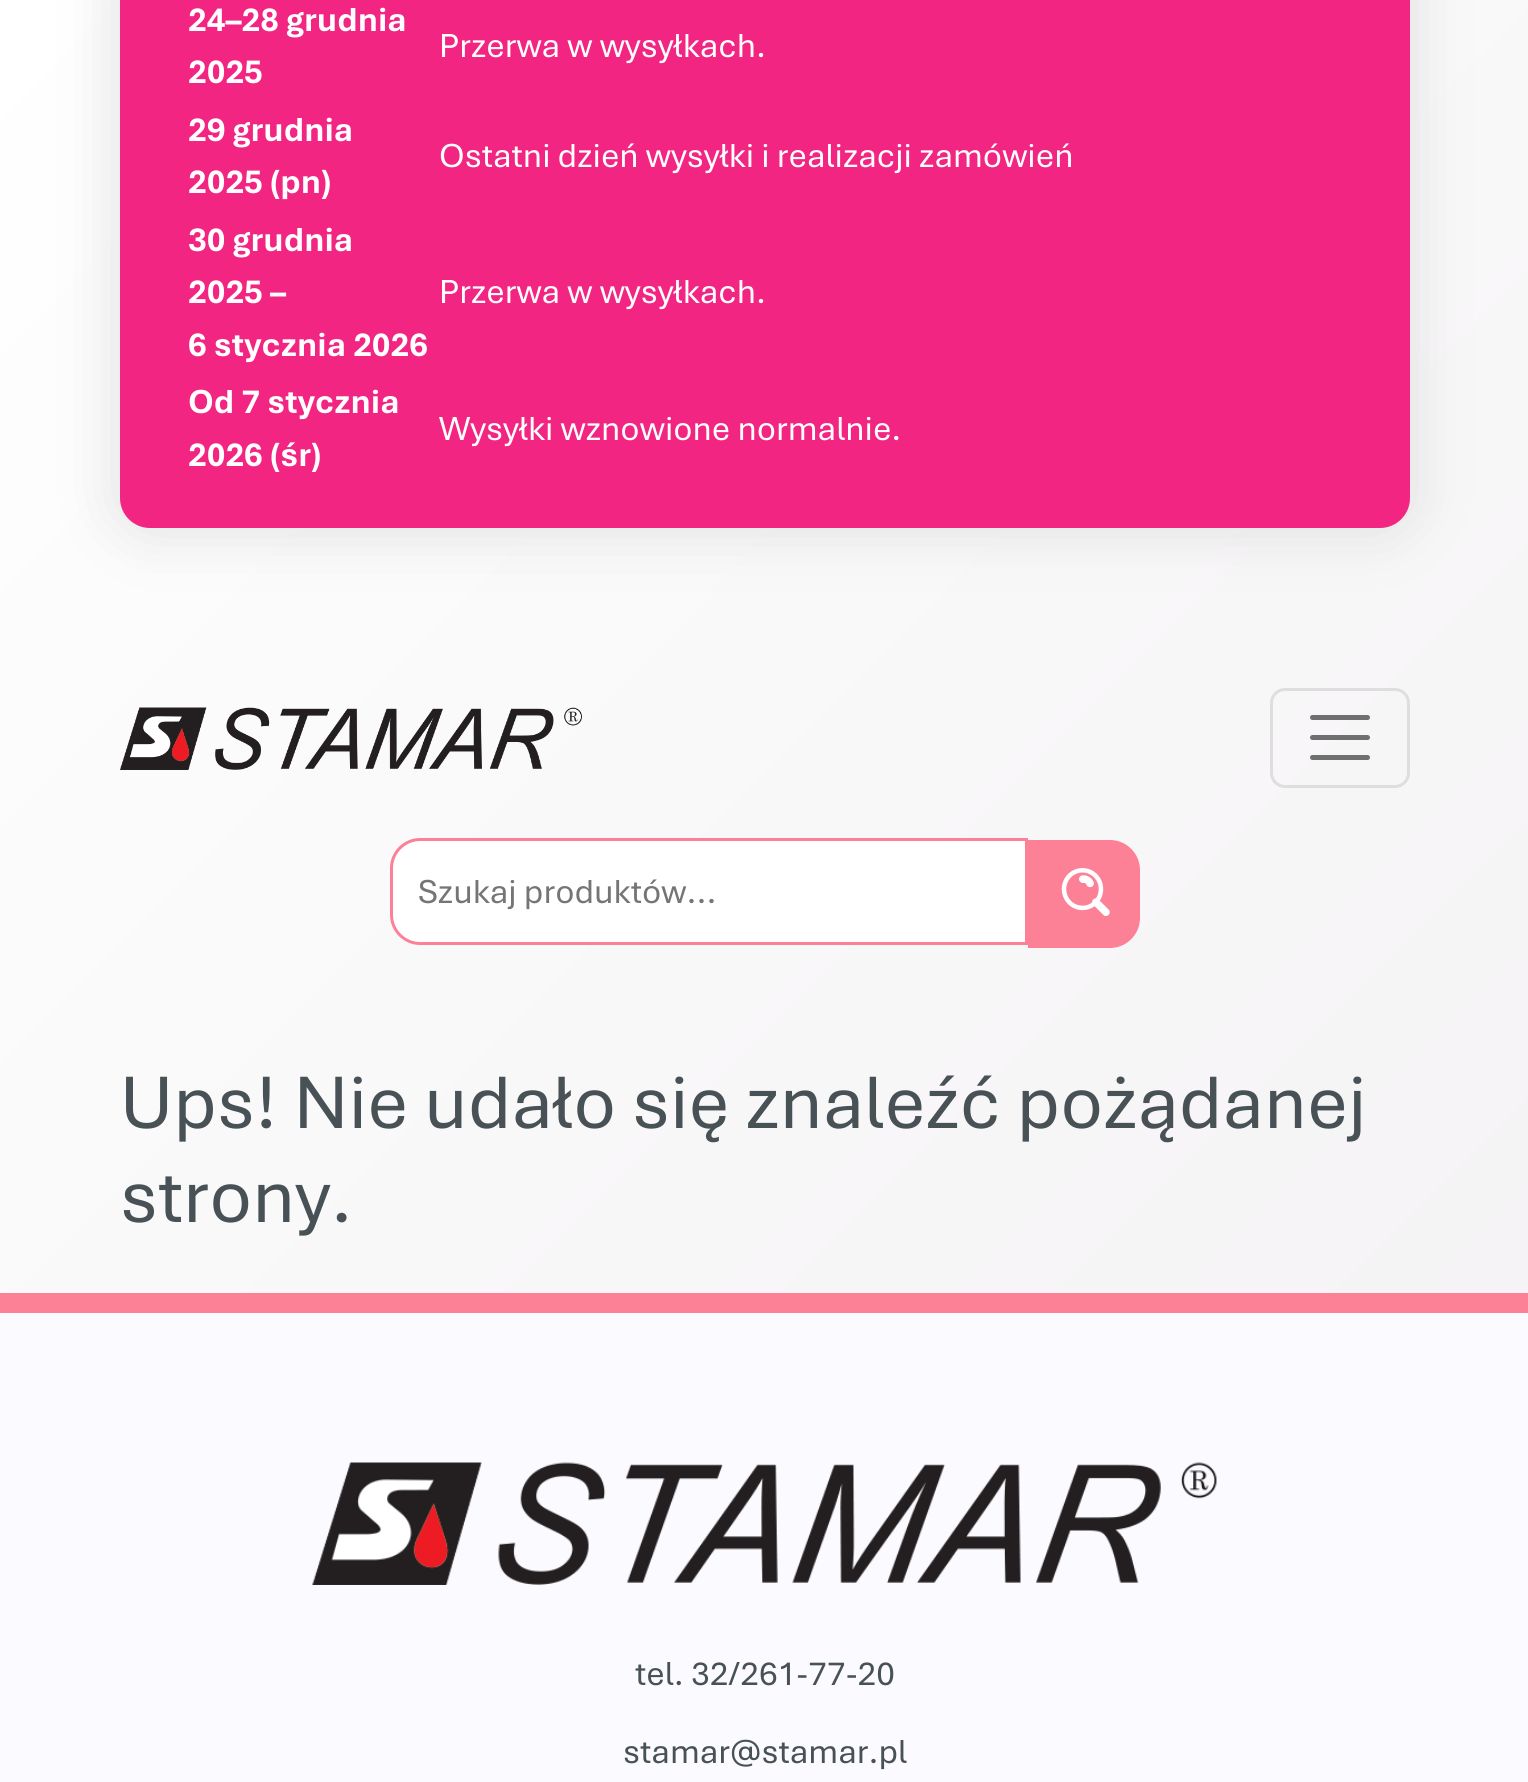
#include <cairo.h>
#include <math.h>
#include <stddef.h>


static void round_rect(cairo_t *cr, double x, double y, double w, double h, double r) {
    cairo_new_sub_path(cr);
    cairo_arc(cr, x + w - r, y + h - r, r, 0, M_PI / 2);
    cairo_arc(cr, x + r, y + h - r, r, M_PI / 2, M_PI);
    cairo_arc(cr, x + r, y + r, r, M_PI, 1.5 * M_PI);
    cairo_arc(cr, x + w - r, y + r, r, 1.5 * M_PI, 2 * M_PI);
    cairo_close_path(cr);
}

static void shadow(cairo_t *cr, double x, double y, double w, double h, double r, double blur, double alpha) {
    cairo_push_group_with_content(cr, CAIRO_CONTENT_ALPHA);
    cairo_set_operator(cr, CAIRO_OPERATOR_SOURCE);
    for (int i = 15; i >= -15 && fmin(w, h) + blur * i / 3 > 0; i -= 2) {
        double e = blur * i / 6;
        cairo_set_source_rgba(cr, 0, 0, 0, alpha * erfc((i - 1) / 8.5) / 2);
        round_rect(cr, x - e, y - e, w + 2 * e, h + 2 * e, fmax(0, fmin(r + e + blur * .6, fmin(w, h) / 2 + e)));
        cairo_fill(cr);
    }
    cairo_pattern_t *soft = cairo_pop_group(cr);
    cairo_mask(cr, soft);
    cairo_pattern_destroy(soft);
}

static void picture(cairo_t *cr, const char *path, double x, double y, double w, double h) {
    cairo_surface_t *image = cairo_image_surface_create_from_png(path);
    cairo_save(cr);
    cairo_set_source_surface(cr, image, x, y);
    cairo_rectangle(cr, x, y, w, h);
    cairo_fill(cr);
    cairo_restore(cr);
    cairo_surface_destroy(image);
}

int main(void) {
    cairo_surface_t *surface = cairo_image_surface_create(CAIRO_FORMAT_RGB24, 1528, 1782);
    cairo_t *cr = cairo_create(surface);
    cairo_font_options_t *options = cairo_font_options_create();
    cairo_font_options_set_hint_metrics(options, CAIRO_HINT_METRICS_OFF);
    cairo_font_options_set_hint_style(options, CAIRO_HINT_STYLE_NONE);
    cairo_set_font_options(cr, options);
    cairo_set_miter_limit(cr, 4);
    cairo_pattern_t *gradient;
    cairo_set_source_rgb(cr, 1, 1, 1);
    cairo_paint(cr);
    gradient = cairo_pattern_create_linear(-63, 63, 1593, 1719);
    cairo_pattern_add_color_stop_rgba(gradient, 0, 1, 1, 1, 1);
    cairo_pattern_add_color_stop_rgba(gradient, 1, 0.953, 0.945, 0.953, 1);
    cairo_set_source(cr, gradient);
    cairo_pattern_destroy(gradient);
    cairo_rectangle(cr, 0, 0, 1528, 1293);
    cairo_fill(cr);
    cairo_set_source_rgb(cr, 0.882, 0.882, 0.882);
    shadow(cr, 115, -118, 1300, 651, 35, 27.5, 1);
    cairo_set_source_rgb(cr, 0.949, 0.149, 0.51);
    round_rect(cr, 120, -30, 1290, 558, 30);
    cairo_fill(cr);
    cairo_select_font_face(cr, "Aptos", CAIRO_FONT_SLANT_NORMAL, CAIRO_FONT_WEIGHT_BOLD);
    cairo_set_font_size(cr, 35);
    cairo_set_source_rgb(cr, 1, 1, 1);
    cairo_move_to(cr, 188, 31);
    cairo_show_text(cr, "24–28 grudnia");
    cairo_move_to(cr, 188, 83);
    cairo_show_text(cr, "2025");
    cairo_select_font_face(cr, "Aptos", CAIRO_FONT_SLANT_NORMAL, CAIRO_FONT_WEIGHT_NORMAL);
    cairo_move_to(cr, 439, 57);
    cairo_show_text(cr, "Przerwa w wysyłkach.");
    cairo_select_font_face(cr, "Aptos", CAIRO_FONT_SLANT_NORMAL, CAIRO_FONT_WEIGHT_BOLD);
    cairo_move_to(cr, 188, 141);
    cairo_show_text(cr, "29 grudnia");
    cairo_move_to(cr, 188, 193);
    cairo_show_text(cr, "2025 (pn)");
    cairo_select_font_face(cr, "Aptos", CAIRO_FONT_SLANT_NORMAL, CAIRO_FONT_WEIGHT_NORMAL);
    cairo_move_to(cr, 439, 167);
    cairo_show_text(cr, "Ostatni dzień wysyłki i realizacji zamówień");
    cairo_select_font_face(cr, "Aptos", CAIRO_FONT_SLANT_NORMAL, CAIRO_FONT_WEIGHT_BOLD);
    cairo_move_to(cr, 188, 251);
    cairo_show_text(cr, "30 grudnia");
    cairo_move_to(cr, 188, 303);
    cairo_show_text(cr, "2025 –");
    cairo_move_to(cr, 188, 356);
    cairo_show_text(cr, "6 stycznia 2026");
    cairo_select_font_face(cr, "Aptos", CAIRO_FONT_SLANT_NORMAL, CAIRO_FONT_WEIGHT_NORMAL);
    cairo_move_to(cr, 439, 303);
    cairo_show_text(cr, "Przerwa w wysyłkach.");
    cairo_select_font_face(cr, "Aptos", CAIRO_FONT_SLANT_NORMAL, CAIRO_FONT_WEIGHT_BOLD);
    cairo_move_to(cr, 188, 413);
    cairo_show_text(cr, "Od 7 stycznia");
    cairo_move_to(cr, 188, 466);
    cairo_show_text(cr, "2026 (śr)");
    cairo_select_font_face(cr, "Aptos", CAIRO_FONT_SLANT_NORMAL, CAIRO_FONT_WEIGHT_NORMAL);
    cairo_move_to(cr, 439, 440);
    cairo_show_text(cr, "Wysyłki wznowione normalnie.");
    picture(cr, "img1.png", 120, 707, 462, 63);
    round_rect(cr, 1271.5, 689.5, 137, 97, 13.5);
    cairo_set_source_rgb(cr, 0.875, 0.871, 0.875);
    cairo_set_line_width(cr, 3);
    cairo_stroke(cr);
    cairo_new_path(cr);
    cairo_move_to(cr, 1312.5, 717.5);
    cairo_line_to(cr, 1367.5, 717.5);
    cairo_move_to(cr, 1312.5, 737.5);
    cairo_line_to(cr, 1367.5, 737.5);
    cairo_move_to(cr, 1312.5, 757.5);
    cairo_line_to(cr, 1367.5, 757.5);
    cairo_set_source_rgb(cr, 0.435, 0.435, 0.435);
    cairo_set_line_width(cr, 5);
    cairo_set_line_cap(cr, CAIRO_LINE_CAP_ROUND);
    cairo_stroke(cr);
    cairo_set_source_rgb(cr, 1, 1, 1);
    cairo_new_path(cr);
    cairo_move_to(cr, 420, 839.5);
    cairo_line_to(cr, 1026.5, 839.5);
    cairo_line_to(cr, 1026.5, 943.5);
    cairo_line_to(cr, 420, 943.5);
    cairo_curve_to(cr, 404.5, 943.5, 391.5, 930.5, 391.5, 915);
    cairo_line_to(cr, 391.5, 868);
    cairo_curve_to(cr, 391.5, 852.5, 404.5, 839.5, 420, 839.5);
    cairo_close_path(cr);
    cairo_fill_preserve(cr);
    cairo_set_source_rgb(cr, 0.988, 0.502, 0.588);
    cairo_set_line_width(cr, 3);
    cairo_set_line_cap(cr, CAIRO_LINE_CAP_BUTT);
    cairo_stroke(cr);
    cairo_set_source_rgb(cr, 0.459, 0.459, 0.459);
    cairo_move_to(cr, 418, 903);
    cairo_show_text(cr, "Szukaj produktów...");
    cairo_set_source_rgb(cr, 0.988, 0.502, 0.588);
    cairo_new_path(cr);
    cairo_move_to(cr, 1028, 840);
    cairo_line_to(cr, 1110, 840);
    cairo_curve_to(cr, 1126.5, 840, 1140, 853.5, 1140, 870);
    cairo_line_to(cr, 1140, 918);
    cairo_curve_to(cr, 1140, 934.5, 1126.5, 948, 1110, 948);
    cairo_line_to(cr, 1028, 948);
    cairo_close_path(cr);
    cairo_fill(cr);
    picture(cr, "img2.png", 1061, 868, 49, 48);
    cairo_set_font_size(cr, 78);
    cairo_set_source_rgb(cr, 0.282, 0.318, 0.337);
    cairo_move_to(cr, 120, 1128);
    cairo_show_text(cr, "Ups! Nie udało się znaleźć pożądanej");
    cairo_move_to(cr, 120, 1222);
    cairo_show_text(cr, "strony.");
    cairo_set_source_rgb(cr, 0.984, 0.984, 1);
    cairo_rectangle(cr, 0, 1313, 1528, 469);
    cairo_fill(cr);
    cairo_set_source_rgb(cr, 0.988, 0.502, 0.588);
    cairo_rectangle(cr, 0, 1293, 1528, 20);
    cairo_fill(cr);
    picture(cr, "img3.png", 312, 1462, 905, 123);
    cairo_set_font_size(cr, 35);
    cairo_set_source_rgb(cr, 0.282, 0.318, 0.337);
    cairo_move_to(cr, 635, 1685);
    cairo_show_text(cr, "tel. 32/261-77-20");
    cairo_move_to(cr, 623, 1763);
    cairo_show_text(cr, "stamar@stamar.pl");
    cairo_surface_write_to_png(surface, "page.png");
    cairo_font_options_destroy(options);
    cairo_destroy(cr);
    cairo_surface_destroy(surface);
    return 0;
}
